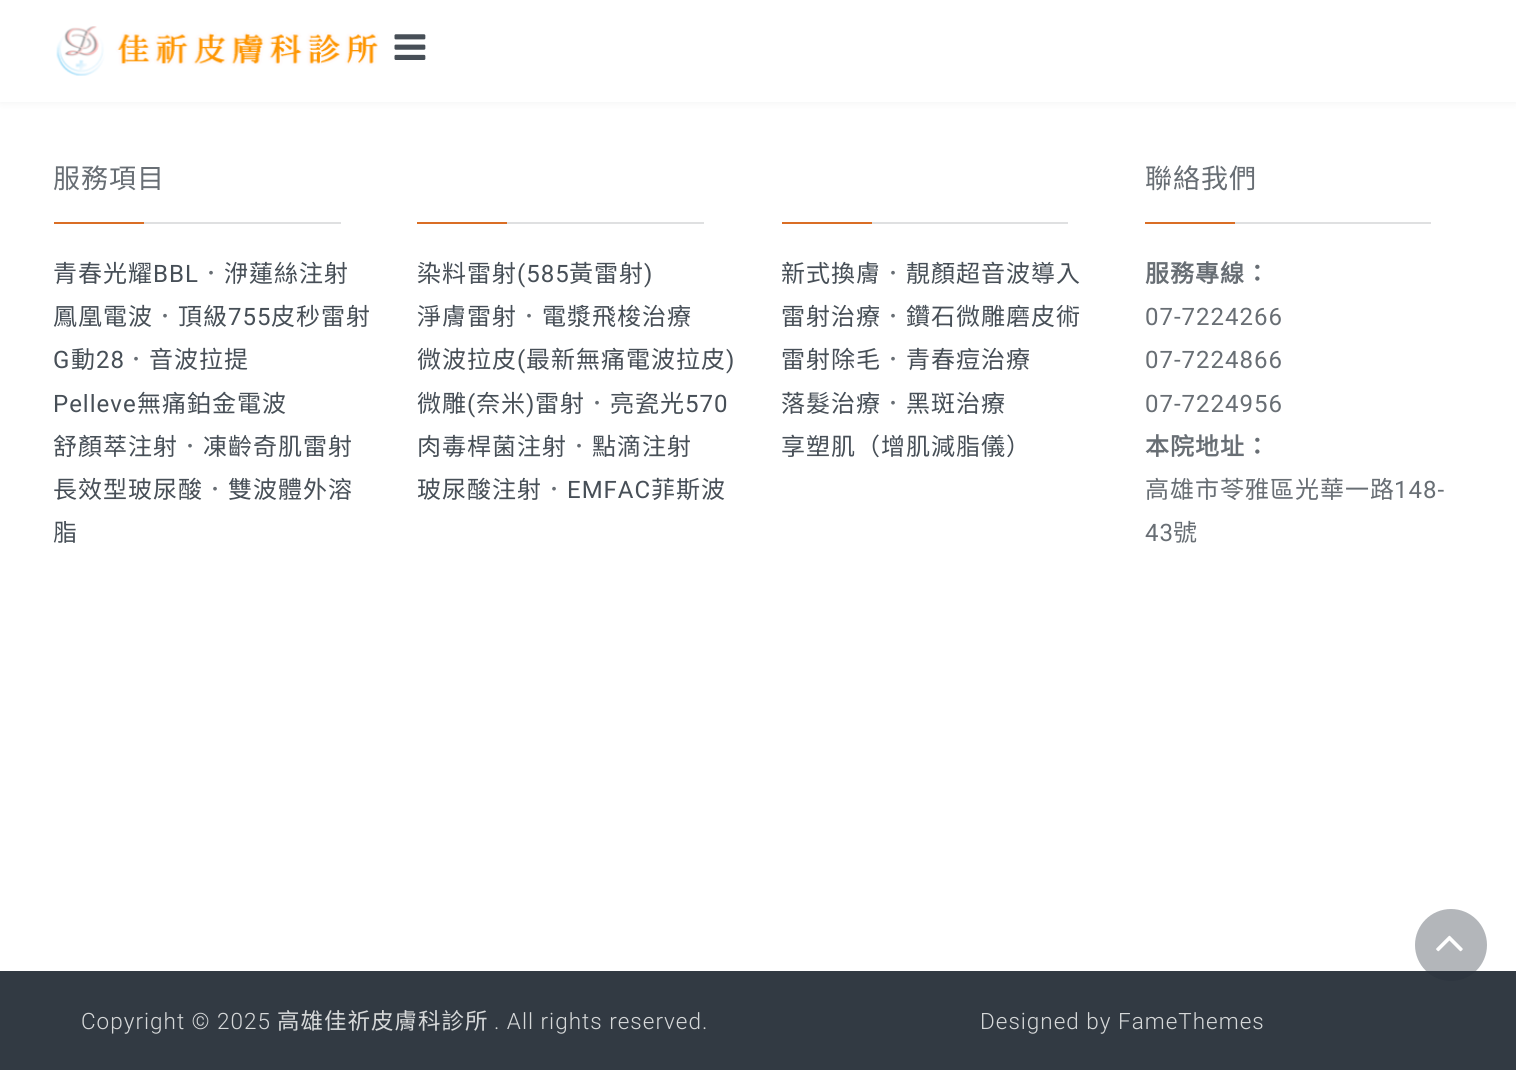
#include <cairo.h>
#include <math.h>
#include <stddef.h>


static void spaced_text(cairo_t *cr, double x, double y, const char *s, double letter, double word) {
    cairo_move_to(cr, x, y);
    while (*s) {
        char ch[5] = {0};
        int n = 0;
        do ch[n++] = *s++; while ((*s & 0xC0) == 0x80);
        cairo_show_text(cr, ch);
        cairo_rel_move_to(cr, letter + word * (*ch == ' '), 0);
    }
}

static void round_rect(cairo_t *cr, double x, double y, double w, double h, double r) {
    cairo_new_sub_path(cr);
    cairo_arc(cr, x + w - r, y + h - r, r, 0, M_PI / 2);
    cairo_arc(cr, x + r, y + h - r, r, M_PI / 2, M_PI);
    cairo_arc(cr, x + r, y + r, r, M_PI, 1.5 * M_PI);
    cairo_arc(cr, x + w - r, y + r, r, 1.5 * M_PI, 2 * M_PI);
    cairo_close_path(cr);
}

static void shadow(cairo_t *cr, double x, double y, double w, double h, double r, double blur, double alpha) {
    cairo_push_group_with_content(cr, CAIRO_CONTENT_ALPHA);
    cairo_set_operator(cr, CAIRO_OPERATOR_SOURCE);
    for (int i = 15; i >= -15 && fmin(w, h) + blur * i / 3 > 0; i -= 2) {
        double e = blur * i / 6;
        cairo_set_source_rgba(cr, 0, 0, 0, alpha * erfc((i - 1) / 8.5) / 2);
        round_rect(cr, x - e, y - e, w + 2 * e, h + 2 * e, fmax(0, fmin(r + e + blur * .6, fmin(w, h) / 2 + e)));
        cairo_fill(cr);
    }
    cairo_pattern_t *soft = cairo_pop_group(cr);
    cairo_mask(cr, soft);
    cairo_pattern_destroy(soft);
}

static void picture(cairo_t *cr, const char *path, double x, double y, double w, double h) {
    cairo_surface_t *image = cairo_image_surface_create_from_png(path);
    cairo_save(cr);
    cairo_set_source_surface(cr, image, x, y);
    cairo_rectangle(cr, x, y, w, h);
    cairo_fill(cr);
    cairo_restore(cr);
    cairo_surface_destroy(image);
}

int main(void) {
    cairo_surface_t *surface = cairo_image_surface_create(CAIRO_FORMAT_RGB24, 1516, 1070);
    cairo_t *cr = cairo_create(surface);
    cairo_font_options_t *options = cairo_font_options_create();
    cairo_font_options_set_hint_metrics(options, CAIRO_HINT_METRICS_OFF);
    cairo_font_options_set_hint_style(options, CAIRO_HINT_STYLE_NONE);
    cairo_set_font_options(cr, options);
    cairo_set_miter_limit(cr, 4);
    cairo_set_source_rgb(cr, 1, 1, 1);
    cairo_paint(cr);
    cairo_set_source_rgb(cr, 0.153, 0.188, 0.224);
    shadow(cr, 0, 0, 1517, 102, 0, 4.5, 0.07);
    cairo_set_source_rgb(cr, 1, 1, 1);
    cairo_rectangle(cr, 0, 0, 1516, 102);
    cairo_fill(cr);
    picture(cr, "img1.png", 56, 26, 322, 50);
    picture(cr, "img2.png", 394, 34, 32, 26);
    cairo_set_source_rgb(cr, 0.875, 0.878, 0.882);
    cairo_rectangle(cr, 1235, 222, 196, 2);
    cairo_fill(cr);
    cairo_rectangle(cr, 872, 222, 196, 2);
    cairo_fill(cr);
    cairo_rectangle(cr, 507, 222, 197, 2);
    cairo_fill(cr);
    cairo_rectangle(cr, 144, 222, 197, 2);
    cairo_fill(cr);
    cairo_select_font_face(cr, "Noto Sans CJK TC", CAIRO_FONT_SLANT_NORMAL, CAIRO_FONT_WEIGHT_NORMAL);
    cairo_set_font_size(cr, 27);
    cairo_set_source_rgb(cr, 0.408, 0.431, 0.455);
    spaced_text(cr, 53, 188, "服務項目", 1, 0);
    cairo_set_source_rgb(cr, 0.855, 0.431, 0.145);
    cairo_rectangle(cr, 54, 222, 90, 2);
    cairo_fill(cr);
    cairo_set_font_size(cr, 24);
    cairo_set_source_rgb(cr, 0.278, 0.31, 0.341);
    spaced_text(cr, 53, 282, "青春光耀", 1, 0);
    cairo_select_font_face(cr, "Roboto", CAIRO_FONT_SLANT_NORMAL, CAIRO_FONT_WEIGHT_NORMAL);
    spaced_text(cr, 153, 282, "BBL", 1, 0);
    cairo_select_font_face(cr, "Noto Sans CJK TC", CAIRO_FONT_SLANT_NORMAL, CAIRO_FONT_WEIGHT_NORMAL);
    cairo_set_source_rgb(cr, 0.408, 0.431, 0.455);
    spaced_text(cr, 199, 282, "．", 1, 0);
    cairo_set_source_rgb(cr, 0.278, 0.31, 0.341);
    spaced_text(cr, 224, 282, "洢蓮絲注射", 1, 0);
    spaced_text(cr, 53, 325, "鳳凰電波", 1, 0);
    cairo_set_source_rgb(cr, 0.408, 0.431, 0.455);
    spaced_text(cr, 153, 325, "．", 1, 0);
    cairo_set_source_rgb(cr, 0.278, 0.31, 0.341);
    spaced_text(cr, 178, 325, "頂級", 1, 0);
    cairo_select_font_face(cr, "Roboto", CAIRO_FONT_SLANT_NORMAL, CAIRO_FONT_WEIGHT_NORMAL);
    spaced_text(cr, 228, 325, "755", 1, 0);
    cairo_select_font_face(cr, "Noto Sans CJK TC", CAIRO_FONT_SLANT_NORMAL, CAIRO_FONT_WEIGHT_NORMAL);
    spaced_text(cr, 271, 325, "皮秒雷射", 1, 0);
    cairo_select_font_face(cr, "Roboto", CAIRO_FONT_SLANT_NORMAL, CAIRO_FONT_WEIGHT_NORMAL);
    spaced_text(cr, 53, 368, "G", 1, 0);
    cairo_select_font_face(cr, "Noto Sans CJK TC", CAIRO_FONT_SLANT_NORMAL, CAIRO_FONT_WEIGHT_NORMAL);
    spaced_text(cr, 71, 368, "動", 1, 0);
    cairo_select_font_face(cr, "Roboto", CAIRO_FONT_SLANT_NORMAL, CAIRO_FONT_WEIGHT_NORMAL);
    spaced_text(cr, 96, 368, "28", 1, 0);
    cairo_select_font_face(cr, "Noto Sans CJK TC", CAIRO_FONT_SLANT_NORMAL, CAIRO_FONT_WEIGHT_NORMAL);
    cairo_set_source_rgb(cr, 0.408, 0.431, 0.455);
    spaced_text(cr, 124, 368, "．", 1, 0);
    cairo_set_source_rgb(cr, 0.278, 0.31, 0.341);
    spaced_text(cr, 149, 368, "音波拉提", 1, 0);
    cairo_select_font_face(cr, "Roboto", CAIRO_FONT_SLANT_NORMAL, CAIRO_FONT_WEIGHT_NORMAL);
    spaced_text(cr, 53, 412, "Pelleve", 1, 0);
    cairo_select_font_face(cr, "Noto Sans CJK TC", CAIRO_FONT_SLANT_NORMAL, CAIRO_FONT_WEIGHT_NORMAL);
    spaced_text(cr, 137, 412, "無痛鉑金電波", 1, 0);
    spaced_text(cr, 53, 455, "舒顏萃注射", 1, 0);
    cairo_set_source_rgb(cr, 0.408, 0.431, 0.455);
    spaced_text(cr, 178, 455, "．", 1, 0);
    cairo_set_source_rgb(cr, 0.278, 0.31, 0.341);
    spaced_text(cr, 203, 455, "凍齡奇肌雷射", 1, 0);
    spaced_text(cr, 53, 498, "長效型玻尿酸", 1, 0);
    cairo_set_source_rgb(cr, 0.408, 0.431, 0.455);
    spaced_text(cr, 203, 498, "．", 1, 0);
    cairo_set_source_rgb(cr, 0.278, 0.31, 0.341);
    spaced_text(cr, 228, 498, "雙波體外溶", 1, 0);
    spaced_text(cr, 53, 541, "脂", 1, 0);
    cairo_set_source_rgb(cr, 0.855, 0.431, 0.145);
    cairo_rectangle(cr, 417, 222, 90, 2);
    cairo_fill(cr);
    cairo_set_source_rgb(cr, 0.278, 0.31, 0.341);
    spaced_text(cr, 417, 282, "染料雷射", 1, 0);
    cairo_select_font_face(cr, "Roboto", CAIRO_FONT_SLANT_NORMAL, CAIRO_FONT_WEIGHT_NORMAL);
    spaced_text(cr, 517, 282, "(585", 1, 0);
    cairo_select_font_face(cr, "Noto Sans CJK TC", CAIRO_FONT_SLANT_NORMAL, CAIRO_FONT_WEIGHT_NORMAL);
    spaced_text(cr, 569, 282, "黃雷射", 1, 0);
    cairo_select_font_face(cr, "Roboto", CAIRO_FONT_SLANT_NORMAL, CAIRO_FONT_WEIGHT_NORMAL);
    spaced_text(cr, 644, 282, ")", 1, 0);
    cairo_select_font_face(cr, "Noto Sans CJK TC", CAIRO_FONT_SLANT_NORMAL, CAIRO_FONT_WEIGHT_NORMAL);
    spaced_text(cr, 417, 325, "淨膚雷射", 1, 0);
    cairo_set_source_rgb(cr, 0.408, 0.431, 0.455);
    spaced_text(cr, 517, 325, "．", 1, 0);
    cairo_set_source_rgb(cr, 0.278, 0.31, 0.341);
    spaced_text(cr, 542, 325, "電漿飛梭治療", 1, 0);
    spaced_text(cr, 417, 368, "微波拉皮", 1, 0);
    cairo_select_font_face(cr, "Roboto", CAIRO_FONT_SLANT_NORMAL, CAIRO_FONT_WEIGHT_NORMAL);
    spaced_text(cr, 517, 368, "(", 1, 0);
    cairo_select_font_face(cr, "Noto Sans CJK TC", CAIRO_FONT_SLANT_NORMAL, CAIRO_FONT_WEIGHT_NORMAL);
    spaced_text(cr, 526, 368, "最新無痛電波拉皮", 1, 0);
    cairo_select_font_face(cr, "Roboto", CAIRO_FONT_SLANT_NORMAL, CAIRO_FONT_WEIGHT_NORMAL);
    spaced_text(cr, 726, 368, ")", 1, 0);
    cairo_select_font_face(cr, "Noto Sans CJK TC", CAIRO_FONT_SLANT_NORMAL, CAIRO_FONT_WEIGHT_NORMAL);
    spaced_text(cr, 417, 412, "微雕", 1, 0);
    cairo_select_font_face(cr, "Roboto", CAIRO_FONT_SLANT_NORMAL, CAIRO_FONT_WEIGHT_NORMAL);
    spaced_text(cr, 467, 412, "(", 1, 0);
    cairo_select_font_face(cr, "Noto Sans CJK TC", CAIRO_FONT_SLANT_NORMAL, CAIRO_FONT_WEIGHT_NORMAL);
    spaced_text(cr, 476, 412, "奈米", 1, 0);
    cairo_select_font_face(cr, "Roboto", CAIRO_FONT_SLANT_NORMAL, CAIRO_FONT_WEIGHT_NORMAL);
    spaced_text(cr, 526, 412, ")", 1, 0);
    cairo_select_font_face(cr, "Noto Sans CJK TC", CAIRO_FONT_SLANT_NORMAL, CAIRO_FONT_WEIGHT_NORMAL);
    spaced_text(cr, 535, 412, "雷射", 1, 0);
    cairo_set_source_rgb(cr, 0.408, 0.431, 0.455);
    spaced_text(cr, 585, 412, "．", 1, 0);
    cairo_set_source_rgb(cr, 0.278, 0.31, 0.341);
    spaced_text(cr, 610, 412, "亮瓷光", 1, 0);
    cairo_select_font_face(cr, "Roboto", CAIRO_FONT_SLANT_NORMAL, CAIRO_FONT_WEIGHT_NORMAL);
    spaced_text(cr, 685, 412, "570", 1, 0);
    cairo_select_font_face(cr, "Noto Sans CJK TC", CAIRO_FONT_SLANT_NORMAL, CAIRO_FONT_WEIGHT_NORMAL);
    spaced_text(cr, 417, 455, "肉毒桿菌注射", 1, 0);
    cairo_set_source_rgb(cr, 0.408, 0.431, 0.455);
    spaced_text(cr, 567, 455, "．", 1, 0);
    cairo_set_source_rgb(cr, 0.278, 0.31, 0.341);
    spaced_text(cr, 592, 455, "點滴注射", 1, 0);
    spaced_text(cr, 417, 498, "玻尿酸注射", 1, 0);
    cairo_set_source_rgb(cr, 0.408, 0.431, 0.455);
    spaced_text(cr, 542, 498, "．", 1, 0);
    cairo_select_font_face(cr, "Roboto", CAIRO_FONT_SLANT_NORMAL, CAIRO_FONT_WEIGHT_NORMAL);
    cairo_set_source_rgb(cr, 0.278, 0.31, 0.341);
    spaced_text(cr, 567, 498, "EMFAC", 1, 0);
    cairo_select_font_face(cr, "Noto Sans CJK TC", CAIRO_FONT_SLANT_NORMAL, CAIRO_FONT_WEIGHT_NORMAL);
    spaced_text(cr, 651, 498, "菲斯波", 1, 0);
    cairo_set_source_rgb(cr, 0.855, 0.431, 0.145);
    cairo_rectangle(cr, 782, 222, 90, 2);
    cairo_fill(cr);
    cairo_set_source_rgb(cr, 0.278, 0.31, 0.341);
    spaced_text(cr, 781, 282, "新式換膚", 1, 0);
    cairo_set_source_rgb(cr, 0.408, 0.431, 0.455);
    spaced_text(cr, 881, 282, "．", 1, 0);
    cairo_set_source_rgb(cr, 0.278, 0.31, 0.341);
    spaced_text(cr, 906, 282, "靚顏超音波導入", 1, 0);
    spaced_text(cr, 781, 325, "雷射治療", 1, 0);
    cairo_set_source_rgb(cr, 0.408, 0.431, 0.455);
    spaced_text(cr, 881, 325, "．", 1, 0);
    cairo_set_source_rgb(cr, 0.278, 0.31, 0.341);
    spaced_text(cr, 906, 325, "鑽石微雕磨皮術", 1, 0);
    spaced_text(cr, 781, 368, "雷射除毛", 1, 0);
    cairo_set_source_rgb(cr, 0.408, 0.431, 0.455);
    spaced_text(cr, 881, 368, "．", 1, 0);
    cairo_set_source_rgb(cr, 0.278, 0.31, 0.341);
    spaced_text(cr, 906, 368, "青春痘治療", 1, 0);
    spaced_text(cr, 781, 412, "落髮治療", 1, 0);
    cairo_set_source_rgb(cr, 0.408, 0.431, 0.455);
    spaced_text(cr, 881, 412, "．", 1, 0);
    cairo_set_source_rgb(cr, 0.278, 0.31, 0.341);
    spaced_text(cr, 906, 412, "黑斑治療", 1, 0);
    spaced_text(cr, 781, 455, "享塑肌（增肌減脂儀）", 1, 0);
    cairo_set_font_size(cr, 27);
    cairo_set_source_rgb(cr, 0.408, 0.431, 0.455);
    spaced_text(cr, 1145, 188, "聯絡我們", 1, 0);
    cairo_set_source_rgb(cr, 0.855, 0.431, 0.145);
    cairo_rectangle(cr, 1145, 222, 90, 2);
    cairo_fill(cr);
    cairo_select_font_face(cr, "Noto Sans CJK TC", CAIRO_FONT_SLANT_NORMAL, CAIRO_FONT_WEIGHT_BOLD);
    cairo_set_font_size(cr, 24);
    cairo_set_source_rgb(cr, 0.408, 0.431, 0.455);
    spaced_text(cr, 1145, 282, "服務專線：", 1, 0);
    cairo_select_font_face(cr, "Roboto", CAIRO_FONT_SLANT_NORMAL, CAIRO_FONT_WEIGHT_NORMAL);
    spaced_text(cr, 1145, 325, "07-7224266", 1, 0);
    spaced_text(cr, 1145, 368, "07-7224866", 1, 0);
    spaced_text(cr, 1145, 412, "07-7224956", 1, 0);
    cairo_select_font_face(cr, "Noto Sans CJK TC", CAIRO_FONT_SLANT_NORMAL, CAIRO_FONT_WEIGHT_BOLD);
    spaced_text(cr, 1145, 455, "本院地址：", 1, 0);
    cairo_select_font_face(cr, "Noto Sans CJK TC", CAIRO_FONT_SLANT_NORMAL, CAIRO_FONT_WEIGHT_NORMAL);
    spaced_text(cr, 1145, 498, "高雄市苓雅區光華一路", 1, 0);
    cairo_select_font_face(cr, "Roboto", CAIRO_FONT_SLANT_NORMAL, CAIRO_FONT_WEIGHT_NORMAL);
    spaced_text(cr, 1394, 498, "148-", 1, 0);
    spaced_text(cr, 1145, 541, "43", 1, 0);
    cairo_select_font_face(cr, "Noto Sans CJK TC", CAIRO_FONT_SLANT_NORMAL, CAIRO_FONT_WEIGHT_NORMAL);
    spaced_text(cr, 1173, 541, "號", 1, 0);
    cairo_set_source_rgb(cr, 0.196, 0.227, 0.263);
    cairo_rectangle(cr, 0, 971, 1516, 99);
    cairo_fill(cr);
    cairo_select_font_face(cr, "Roboto Light", CAIRO_FONT_SLANT_NORMAL, CAIRO_FONT_WEIGHT_NORMAL);
    cairo_set_font_size(cr, 22.5);
    cairo_set_source_rgb(cr, 0.839, 0.847, 0.851);
    spaced_text(cr, 81, 1029, "Copyright © 2025", 1, 0);
    cairo_select_font_face(cr, "Noto Sans CJK TC", CAIRO_FONT_SLANT_NORMAL, CAIRO_FONT_WEIGHT_NORMAL);
    spaced_text(cr, 277, 1029, "高雄佳祈皮膚科診所", 1, 0);
    cairo_select_font_face(cr, "Roboto Light", CAIRO_FONT_SLANT_NORMAL, CAIRO_FONT_WEIGHT_NORMAL);
    spaced_text(cr, 494, 1029, ". All rights reserved.", 1, 0);
    spaced_text(cr, 980, 1029, "Designed by FameThemes", 1, 0);
    cairo_set_source_rgba(cr, 0.153, 0.188, 0.224, 0.35);
    cairo_new_path(cr);
    cairo_arc(cr, 1451, 945, 36, 0, 2 * M_PI);
    cairo_fill(cr);
    picture(cr, "img3.png", 1436, 935, 27, 17);
    cairo_surface_write_to_png(surface, "page.png");
    cairo_font_options_destroy(options);
    cairo_destroy(cr);
    cairo_surface_destroy(surface);
    return 0;
}
